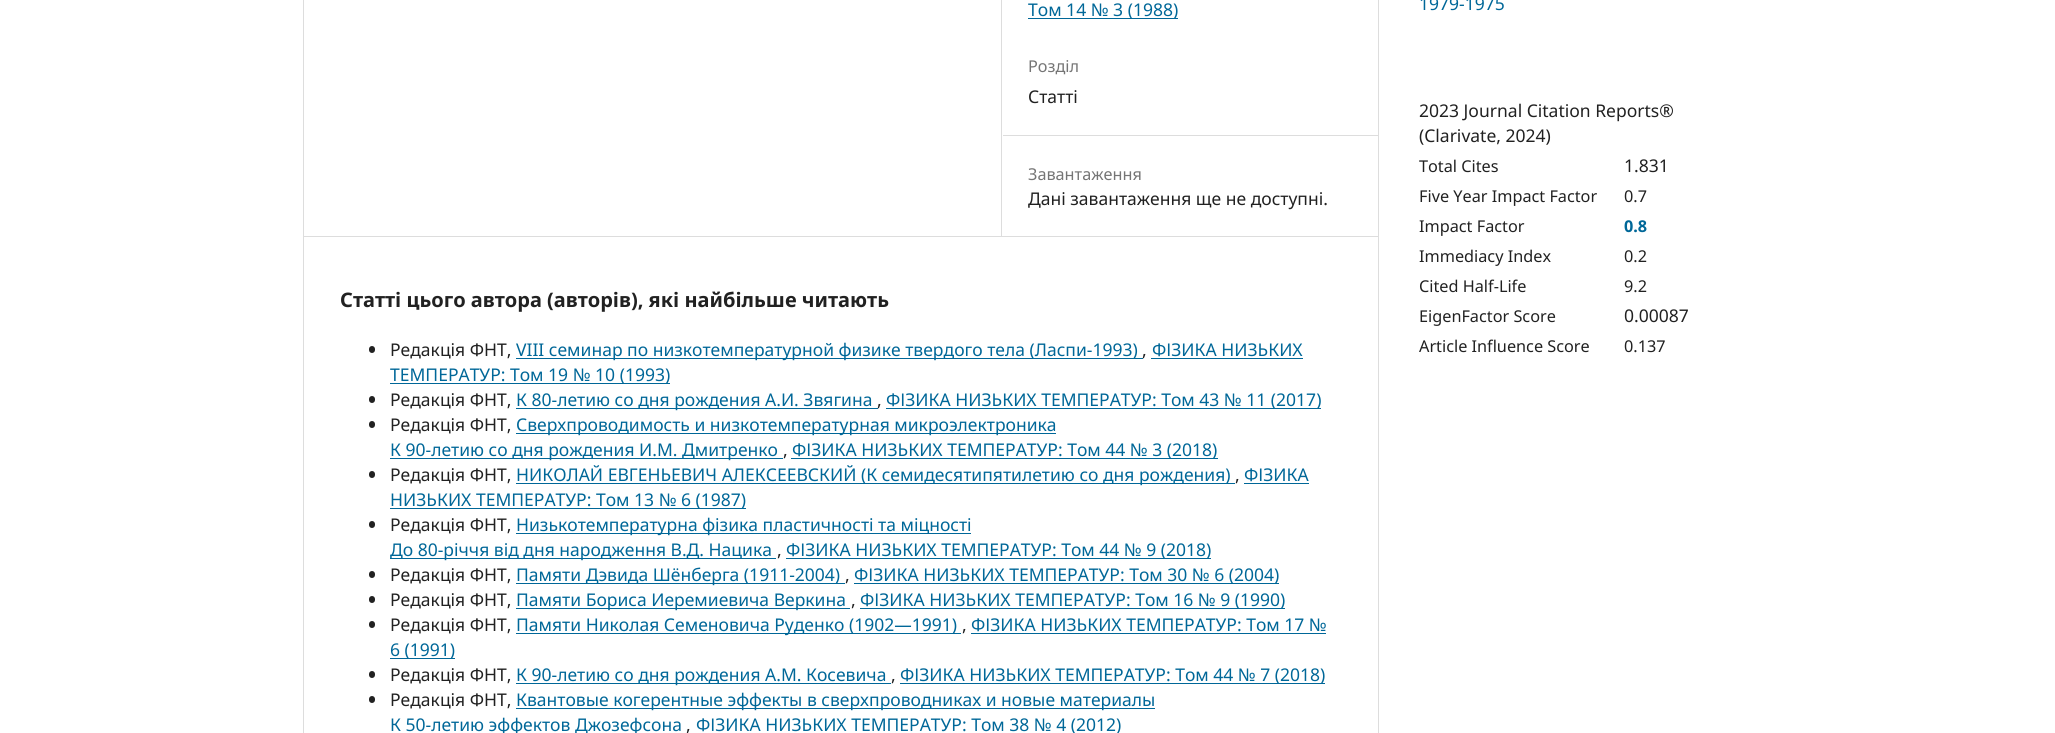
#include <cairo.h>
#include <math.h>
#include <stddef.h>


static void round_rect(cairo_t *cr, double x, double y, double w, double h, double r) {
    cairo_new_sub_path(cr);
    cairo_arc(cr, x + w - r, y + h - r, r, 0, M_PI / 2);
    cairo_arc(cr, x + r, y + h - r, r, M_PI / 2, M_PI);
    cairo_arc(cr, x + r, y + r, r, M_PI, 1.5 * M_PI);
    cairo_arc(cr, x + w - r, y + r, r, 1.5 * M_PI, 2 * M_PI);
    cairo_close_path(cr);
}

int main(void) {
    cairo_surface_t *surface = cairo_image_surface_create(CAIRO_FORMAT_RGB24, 2055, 733);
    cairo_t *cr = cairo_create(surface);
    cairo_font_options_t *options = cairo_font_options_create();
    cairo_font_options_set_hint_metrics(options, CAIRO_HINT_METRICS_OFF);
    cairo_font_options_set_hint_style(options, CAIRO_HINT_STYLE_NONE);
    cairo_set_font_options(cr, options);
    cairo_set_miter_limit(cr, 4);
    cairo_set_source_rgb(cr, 1, 1, 1);
    cairo_paint(cr);
    cairo_set_source_rgb(cr, 0.867, 0.867, 0.867);
    cairo_rectangle(cr, 303, 236, 1075, 1);
    cairo_fill(cr);
    cairo_rectangle(cr, 303, 0, 1, 733);
    cairo_fill(cr);
    cairo_rectangle(cr, 1001, 0, 1, 236);
    cairo_fill(cr);
    cairo_rectangle(cr, 1003, 135, 375, 1);
    cairo_fill(cr);
    cairo_set_source_rgb(cr, 0, 0.404, 0.596);
    cairo_rectangle(cr, 1028, 18, 150, 1);
    cairo_fill(cr);
    cairo_select_font_face(cr, "Noto Sans", CAIRO_FONT_SLANT_NORMAL, CAIRO_FONT_WEIGHT_NORMAL);
    cairo_set_font_size(cr, 17.5);
    cairo_move_to(cr, 1028, 16);
    cairo_show_text(cr, "Том 14 № 3 (1988)");
    cairo_set_font_size(cr, 16.25);
    cairo_set_source_rgb(cr, 0.459, 0.459, 0.459);
    cairo_move_to(cr, 1028, 72);
    cairo_show_text(cr, "Розділ");
    cairo_set_font_size(cr, 17.5);
    cairo_set_source_rgb(cr, 0.129, 0.129, 0.129);
    cairo_move_to(cr, 1028, 103);
    cairo_show_text(cr, "Статті");
    cairo_set_font_size(cr, 16.25);
    cairo_set_source_rgb(cr, 0.459, 0.459, 0.459);
    cairo_move_to(cr, 1028, 180);
    cairo_show_text(cr, "Завантаження");
    cairo_set_font_size(cr, 17.5);
    cairo_set_source_rgb(cr, 0.129, 0.129, 0.129);
    cairo_move_to(cr, 1028, 205);
    cairo_show_text(cr, "Дані завантаження ще не доступні.");
    cairo_select_font_face(cr, "Noto Sans", CAIRO_FONT_SLANT_NORMAL, CAIRO_FONT_WEIGHT_BOLD);
    cairo_set_font_size(cr, 20);
    cairo_move_to(cr, 340, 307);
    cairo_show_text(cr, "Статті цього автора (авторів), які найбільше читають");
    round_rect(cr, 369, 346, 6, 7, 3);
    cairo_fill(cr);
    cairo_select_font_face(cr, "Noto Sans", CAIRO_FONT_SLANT_NORMAL, CAIRO_FONT_WEIGHT_NORMAL);
    cairo_set_font_size(cr, 17.5);
    cairo_move_to(cr, 390, 356);
    cairo_show_text(cr, "Редакція ФНТ,");
    cairo_set_source_rgb(cr, 0, 0.404, 0.596);
    cairo_rectangle(cr, 516, 358, 627, 1);
    cairo_fill(cr);
    cairo_move_to(cr, 516, 356);
    cairo_show_text(cr, "VIII семинар по низкотемпературной физике твердого тела (Ласпи-1993)");
    cairo_move_to(cr, 1152, 356);
    cairo_show_text(cr, "ФІЗИКА НИЗЬКИХ");
    cairo_rectangle(cr, 1151, 358, 152, 1);
    cairo_fill(cr);
    cairo_set_source_rgb(cr, 0.129, 0.129, 0.129);
    cairo_move_to(cr, 1142, 356);
    cairo_show_text(cr, ",");
    cairo_set_source_rgb(cr, 0, 0.404, 0.596);
    cairo_rectangle(cr, 390, 383, 280, 1);
    cairo_fill(cr);
    cairo_move_to(cr, 390, 381);
    cairo_show_text(cr, "ТЕМПЕРАТУР: Том 19 № 10 (1993)");
    cairo_set_source_rgb(cr, 0.129, 0.129, 0.129);
    round_rect(cr, 369, 396, 6, 7, 3);
    cairo_fill(cr);
    cairo_move_to(cr, 390, 406);
    cairo_show_text(cr, "Редакція ФНТ,");
    cairo_set_source_rgb(cr, 0, 0.404, 0.596);
    cairo_rectangle(cr, 516, 408, 362, 1);
    cairo_fill(cr);
    cairo_move_to(cr, 516, 406);
    cairo_show_text(cr, "К 80-летию со дня рождения А.И. Звягина");
    cairo_rectangle(cr, 886, 408, 435, 1);
    cairo_fill(cr);
    cairo_move_to(cr, 886, 406);
    cairo_show_text(cr, "ФІЗИКА НИЗЬКИХ ТЕМПЕРАТУР: Том 43 № 11 (2017)");
    cairo_set_source_rgb(cr, 0.129, 0.129, 0.129);
    cairo_move_to(cr, 877, 406);
    cairo_show_text(cr, ",");
    round_rect(cr, 369, 421, 6, 7, 3);
    cairo_fill(cr);
    cairo_move_to(cr, 390, 431);
    cairo_show_text(cr, "Редакція ФНТ,");
    cairo_set_source_rgb(cr, 0, 0.404, 0.596);
    cairo_rectangle(cr, 516, 433, 540, 1);
    cairo_fill(cr);
    cairo_move_to(cr, 516, 431);
    cairo_show_text(cr, "Сверхпроводимость и низкотемпературная микроэлектроника");
    cairo_rectangle(cr, 390, 458, 393, 1);
    cairo_fill(cr);
    cairo_move_to(cr, 390, 456);
    cairo_show_text(cr, "К 90-летию со дня рождения И.М. Дмитренко");
    cairo_set_source_rgb(cr, 0.129, 0.129, 0.129);
    cairo_move_to(cr, 783, 456);
    cairo_show_text(cr, ",");
    cairo_set_source_rgb(cr, 0, 0.404, 0.596);
    cairo_rectangle(cr, 791, 458, 427, 1);
    cairo_fill(cr);
    cairo_move_to(cr, 792, 456);
    cairo_show_text(cr, "ФІЗИКА НИЗЬКИХ ТЕМПЕРАТУР: Том 44 № 3 (2018)");
    cairo_set_source_rgb(cr, 0.129, 0.129, 0.129);
    round_rect(cr, 369, 471, 6, 7, 3);
    cairo_fill(cr);
    cairo_move_to(cr, 390, 481);
    cairo_show_text(cr, "Редакція ФНТ,");
    cairo_set_source_rgb(cr, 0, 0.404, 0.596);
    cairo_rectangle(cr, 516, 483, 719, 1);
    cairo_fill(cr);
    cairo_move_to(cr, 516, 481);
    cairo_show_text(cr, "НИКОЛАЙ ЕВГЕНЬЕВИЧ АЛЕКСЕЕВСКИЙ (К семидесятипятилетию со дня рождения)");
    cairo_move_to(cr, 1244, 481);
    cairo_show_text(cr, "ФІЗИКА");
    cairo_rectangle(cr, 1244, 483, 65, 1);
    cairo_fill(cr);
    cairo_set_source_rgb(cr, 0.129, 0.129, 0.129);
    cairo_move_to(cr, 1235, 481);
    cairo_show_text(cr, ",");
    cairo_set_source_rgb(cr, 0, 0.404, 0.596);
    cairo_rectangle(cr, 390, 508, 356, 1);
    cairo_fill(cr);
    cairo_move_to(cr, 390, 506);
    cairo_show_text(cr, "НИЗЬКИХ ТЕМПЕРАТУР: Том 13 № 6 (1987)");
    cairo_set_source_rgb(cr, 0.129, 0.129, 0.129);
    round_rect(cr, 369, 521, 6, 7, 3);
    cairo_fill(cr);
    cairo_move_to(cr, 390, 531);
    cairo_show_text(cr, "Редакція ФНТ,");
    cairo_set_source_rgb(cr, 0, 0.404, 0.596);
    cairo_rectangle(cr, 516, 533, 455, 1);
    cairo_fill(cr);
    cairo_move_to(cr, 516, 531);
    cairo_show_text(cr, "Низькотемпературна фізика пластичності та міцності");
    cairo_rectangle(cr, 390, 558, 386, 1);
    cairo_fill(cr);
    cairo_move_to(cr, 390, 556);
    cairo_show_text(cr, "До 80-річчя від дня народження В.Д. Нацика");
    cairo_set_source_rgb(cr, 0.129, 0.129, 0.129);
    cairo_move_to(cr, 777, 556);
    cairo_show_text(cr, ",");
    cairo_set_source_rgb(cr, 0, 0.404, 0.596);
    cairo_rectangle(cr, 786, 558, 425, 1);
    cairo_fill(cr);
    cairo_move_to(cr, 786, 556);
    cairo_show_text(cr, "ФІЗИКА НИЗЬКИХ ТЕМПЕРАТУР: Том 44 № 9 (2018)");
    cairo_set_source_rgb(cr, 0.129, 0.129, 0.129);
    round_rect(cr, 369, 571, 6, 7, 3);
    cairo_fill(cr);
    cairo_move_to(cr, 390, 581);
    cairo_show_text(cr, "Редакція ФНТ,");
    cairo_set_source_rgb(cr, 0, 0.404, 0.596);
    cairo_rectangle(cr, 516, 583, 329, 1);
    cairo_fill(cr);
    cairo_move_to(cr, 516, 581);
    cairo_show_text(cr, "Памяти Дэвида Шёнберга (1911-2004)");
    cairo_rectangle(cr, 854, 583, 425, 1);
    cairo_fill(cr);
    cairo_move_to(cr, 854, 581);
    cairo_show_text(cr, "ФІЗИКА НИЗЬКИХ ТЕМПЕРАТУР: Том 30 № 6 (2004)");
    cairo_set_source_rgb(cr, 0.129, 0.129, 0.129);
    cairo_move_to(cr, 845, 581);
    cairo_show_text(cr, ",");
    round_rect(cr, 369, 596, 6, 7, 3);
    cairo_fill(cr);
    cairo_move_to(cr, 390, 606);
    cairo_show_text(cr, "Редакція ФНТ,");
    cairo_set_source_rgb(cr, 0, 0.404, 0.596);
    cairo_rectangle(cr, 516, 608, 334, 1);
    cairo_fill(cr);
    cairo_move_to(cr, 516, 606);
    cairo_show_text(cr, "Памяти Бориса Иеремиевича Bеркина");
    cairo_rectangle(cr, 860, 608, 425, 1);
    cairo_fill(cr);
    cairo_move_to(cr, 860, 606);
    cairo_show_text(cr, "ФІЗИКА НИЗЬКИХ ТЕМПЕРАТУР: Том 16 № 9 (1990)");
    cairo_set_source_rgb(cr, 0.129, 0.129, 0.129);
    cairo_move_to(cr, 851, 606);
    cairo_show_text(cr, ",");
    round_rect(cr, 369, 621, 6, 7, 3);
    cairo_fill(cr);
    cairo_move_to(cr, 390, 631);
    cairo_show_text(cr, "Редакція ФНТ,");
    cairo_set_source_rgb(cr, 0, 0.404, 0.596);
    cairo_rectangle(cr, 516, 633, 445, 1);
    cairo_fill(cr);
    cairo_move_to(cr, 516, 631);
    cairo_show_text(cr, "Памяти Николая Семеновича Руденко (1902—1991)");
    cairo_move_to(cr, 971, 631);
    cairo_show_text(cr, "ФІЗИКА НИЗЬКИХ ТЕМПЕРАТУР: Том 17 №");
    cairo_rectangle(cr, 971, 633, 355, 1);
    cairo_fill(cr);
    cairo_set_source_rgb(cr, 0.129, 0.129, 0.129);
    cairo_move_to(cr, 962, 631);
    cairo_show_text(cr, ",");
    cairo_set_source_rgb(cr, 0, 0.404, 0.596);
    cairo_rectangle(cr, 390, 658, 65, 1);
    cairo_fill(cr);
    cairo_move_to(cr, 390, 656);
    cairo_show_text(cr, "6 (1991)");
    cairo_set_source_rgb(cr, 0.129, 0.129, 0.129);
    round_rect(cr, 369, 671, 6, 7, 3);
    cairo_fill(cr);
    cairo_move_to(cr, 390, 681);
    cairo_show_text(cr, "Редакція ФНТ,");
    cairo_set_source_rgb(cr, 0, 0.404, 0.596);
    cairo_rectangle(cr, 516, 683, 375, 1);
    cairo_fill(cr);
    cairo_move_to(cr, 516, 681);
    cairo_show_text(cr, "К 90-летию со дня рождения А.М. Косевича");
    cairo_rectangle(cr, 900, 683, 425, 1);
    cairo_fill(cr);
    cairo_move_to(cr, 900, 681);
    cairo_show_text(cr, "ФІЗИКА НИЗЬКИХ ТЕМПЕРАТУР: Том 44 № 7 (2018)");
    cairo_set_source_rgb(cr, 0.129, 0.129, 0.129);
    cairo_move_to(cr, 891, 681);
    cairo_show_text(cr, ",");
    round_rect(cr, 369, 696, 6, 7, 3);
    cairo_fill(cr);
    cairo_move_to(cr, 390, 706);
    cairo_show_text(cr, "Редакція ФНТ,");
    cairo_set_source_rgb(cr, 0, 0.404, 0.596);
    cairo_rectangle(cr, 516, 708, 639, 1);
    cairo_fill(cr);
    cairo_move_to(cr, 516, 706);
    cairo_show_text(cr, "Квантовые когерентные эффекты в сверхпроводниках и новые материалы");
    cairo_move_to(cr, 390, 731);
    cairo_show_text(cr, "К 50-летию эффектов Джозефсона");
    cairo_set_source_rgb(cr, 0.129, 0.129, 0.129);
    cairo_move_to(cr, 686, 731);
    cairo_show_text(cr, ",");
    cairo_set_source_rgb(cr, 0, 0.404, 0.596);
    cairo_move_to(cr, 696, 731);
    cairo_show_text(cr, "ФІЗИКА НИЗЬКИХ ТЕМПЕРАТУР: Том 38 № 4 (2012)");
    cairo_set_source_rgb(cr, 0.867, 0.867, 0.867);
    cairo_rectangle(cr, 1378, 0, 1, 733);
    cairo_fill(cr);
    cairo_set_source_rgb(cr, 0, 0.404, 0.596);
    cairo_move_to(cr, 1419, 10);
    cairo_show_text(cr, "1979-1975");
    cairo_set_source_rgb(cr, 0.129, 0.129, 0.129);
    cairo_move_to(cr, 1419, 117);
    cairo_show_text(cr, "2023 Journal Citation Reports®");
    cairo_move_to(cr, 1419, 142);
    cairo_show_text(cr, "(Clarivate, 2024)");
    cairo_set_font_size(cr, 16.25);
    cairo_move_to(cr, 1419, 172);
    cairo_show_text(cr, "Total Cites");
    cairo_set_font_size(cr, 17.5);
    cairo_move_to(cr, 1624, 172);
    cairo_show_text(cr, "1.831");
    cairo_set_font_size(cr, 16.25);
    cairo_move_to(cr, 1419, 202);
    cairo_show_text(cr, "Five Year Impact Factor");
    cairo_move_to(cr, 1624, 202);
    cairo_show_text(cr, "0.7");
    cairo_move_to(cr, 1419, 232);
    cairo_show_text(cr, "Impact Factor");
    cairo_select_font_face(cr, "Noto Sans", CAIRO_FONT_SLANT_NORMAL, CAIRO_FONT_WEIGHT_BOLD);
    cairo_set_source_rgb(cr, 0, 0.404, 0.596);
    cairo_move_to(cr, 1624, 232);
    cairo_show_text(cr, "0.8");
    cairo_select_font_face(cr, "Noto Sans", CAIRO_FONT_SLANT_NORMAL, CAIRO_FONT_WEIGHT_NORMAL);
    cairo_set_source_rgb(cr, 0.129, 0.129, 0.129);
    cairo_move_to(cr, 1419, 262);
    cairo_show_text(cr, "Immediacy Index");
    cairo_move_to(cr, 1624, 262);
    cairo_show_text(cr, "0.2");
    cairo_move_to(cr, 1419, 292);
    cairo_show_text(cr, "Cited Half-Life");
    cairo_move_to(cr, 1624, 292);
    cairo_show_text(cr, "9.2");
    cairo_move_to(cr, 1419, 322);
    cairo_show_text(cr, "EigenFactor Score");
    cairo_set_font_size(cr, 17.5);
    cairo_move_to(cr, 1624, 322);
    cairo_show_text(cr, "0.00087");
    cairo_set_font_size(cr, 16.25);
    cairo_move_to(cr, 1419, 352);
    cairo_show_text(cr, "Article Influence Score");
    cairo_move_to(cr, 1624, 352);
    cairo_show_text(cr, "0.137");
    cairo_surface_write_to_png(surface, "page.png");
    cairo_font_options_destroy(options);
    cairo_destroy(cr);
    cairo_surface_destroy(surface);
    return 0;
}
